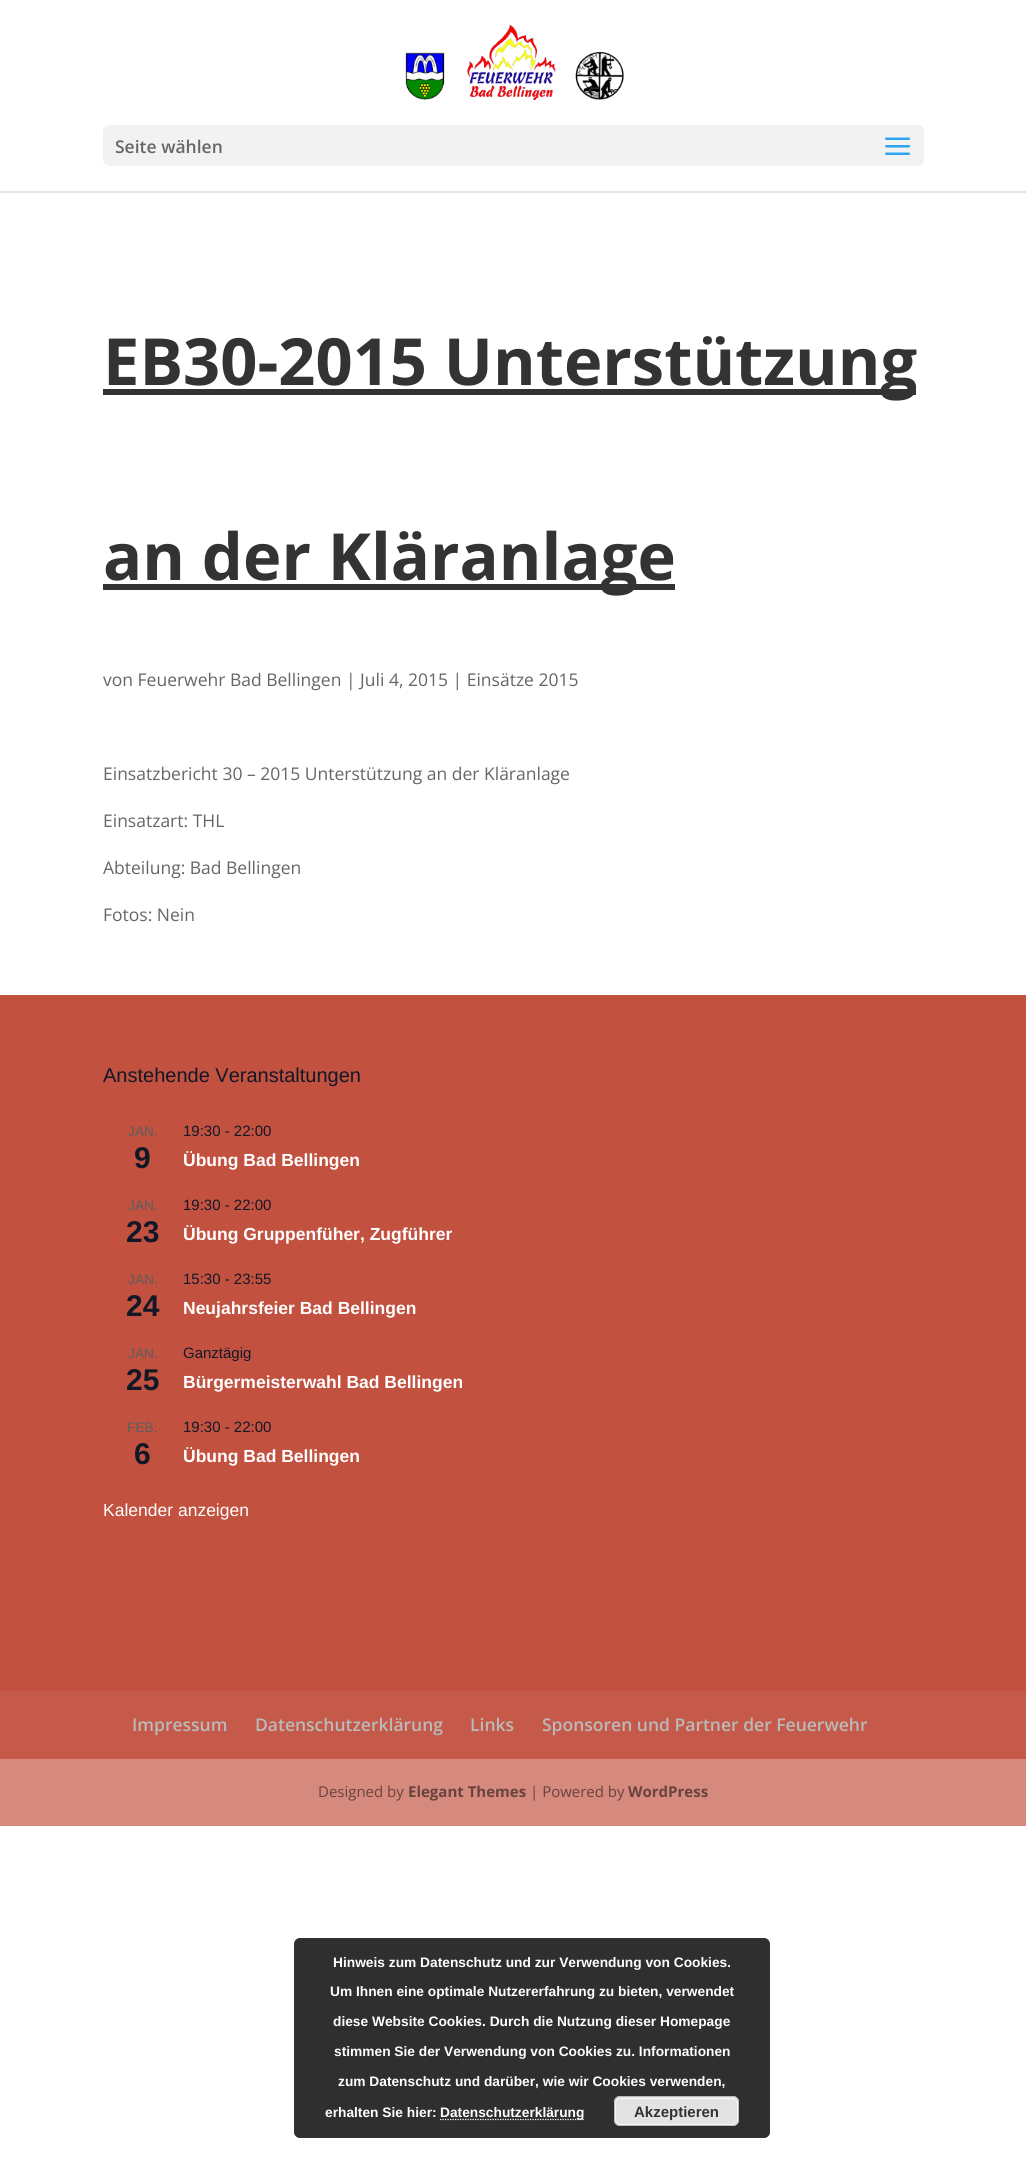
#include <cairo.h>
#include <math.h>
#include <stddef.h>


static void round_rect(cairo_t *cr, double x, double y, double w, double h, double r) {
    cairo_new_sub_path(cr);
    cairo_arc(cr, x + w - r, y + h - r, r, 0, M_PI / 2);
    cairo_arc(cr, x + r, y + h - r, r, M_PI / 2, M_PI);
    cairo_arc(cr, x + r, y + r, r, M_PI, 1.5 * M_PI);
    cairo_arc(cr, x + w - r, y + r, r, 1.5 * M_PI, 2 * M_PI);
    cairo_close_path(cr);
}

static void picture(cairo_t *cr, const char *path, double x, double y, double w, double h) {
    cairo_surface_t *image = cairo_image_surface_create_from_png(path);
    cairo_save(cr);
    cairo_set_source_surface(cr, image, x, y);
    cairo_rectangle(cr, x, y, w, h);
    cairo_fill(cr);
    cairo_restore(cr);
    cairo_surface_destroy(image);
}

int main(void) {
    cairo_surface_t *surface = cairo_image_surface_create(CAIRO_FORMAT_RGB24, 1026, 2174);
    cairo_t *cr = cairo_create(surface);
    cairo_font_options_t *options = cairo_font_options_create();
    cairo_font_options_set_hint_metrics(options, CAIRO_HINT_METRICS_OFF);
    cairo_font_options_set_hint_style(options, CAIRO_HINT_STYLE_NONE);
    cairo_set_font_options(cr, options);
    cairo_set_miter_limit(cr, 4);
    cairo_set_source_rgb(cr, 1, 1, 1);
    cairo_paint(cr);
    cairo_set_source_rgb(cr, 0.902, 0.902, 0.902);
    cairo_rectangle(cr, 0, 191, 1026, 2);
    cairo_fill(cr);
    picture(cr, "img1.png", 405, 25, 219, 75);
    cairo_set_source_rgb(cr, 0.949, 0.949, 0.949);
    round_rect(cr, 103, 125, 821, 41, 6);
    cairo_fill(cr);
    cairo_select_font_face(cr, "Open Sans SemiBold", CAIRO_FONT_SLANT_NORMAL, CAIRO_FONT_WEIGHT_NORMAL);
    cairo_set_font_size(cr, 17.5);
    cairo_set_source_rgb(cr, 0.4, 0.4, 0.4);
    cairo_move_to(cr, 115, 153);
    cairo_show_text(cr, "Seite wählen");
    picture(cr, "img2.png", 885, 137, 25, 18);
    cairo_set_source_rgb(cr, 0.2, 0.2, 0.2);
    cairo_rectangle(cr, 103, 389, 813, 6);
    cairo_fill(cr);
    cairo_select_font_face(cr, "Open Sans", CAIRO_FONT_SLANT_NORMAL, CAIRO_FONT_WEIGHT_BOLD);
    cairo_set_font_size(cr, 65);
    cairo_move_to(cr, 103, 385);
    cairo_show_text(cr, "EB30-2015 Unterstützung");
    cairo_rectangle(cr, 103, 584, 572, 6);
    cairo_fill(cr);
    cairo_move_to(cr, 103, 580);
    cairo_show_text(cr, "an der Kläranlage");
    cairo_select_font_face(cr, "Open Sans", CAIRO_FONT_SLANT_NORMAL, CAIRO_FONT_WEIGHT_NORMAL);
    cairo_set_font_size(cr, 17.5);
    cairo_set_source_rgb(cr, 0.4, 0.4, 0.4);
    cairo_move_to(cr, 103, 686);
    cairo_show_text(cr, "von Feuerwehr Bad Bellingen | Juli 4, 2015 | Einsätze 2015");
    cairo_move_to(cr, 103, 780);
    cairo_show_text(cr, "Einsatzbericht 30 – 2015 Unterstützung an der Kläranlage");
    cairo_move_to(cr, 103, 827);
    cairo_show_text(cr, "Einsatzart: THL");
    cairo_move_to(cr, 103, 874);
    cairo_show_text(cr, "Abteilung: Bad Bellingen");
    cairo_move_to(cr, 103, 921);
    cairo_show_text(cr, "Fotos: Nein");
    cairo_set_source_rgb(cr, 0.761, 0.318, 0.251);
    cairo_rectangle(cr, 0, 995, 1026, 696);
    cairo_fill(cr);
    cairo_select_font_face(cr, "Liberation Sans", CAIRO_FONT_SLANT_NORMAL, CAIRO_FONT_WEIGHT_NORMAL);
    cairo_set_font_size(cr, 20);
    cairo_set_source_rgb(cr, 0.078, 0.094, 0.153);
    cairo_move_to(cr, 103, 1082);
    cairo_show_text(cr, "Anstehende Veranstaltungen");
    cairo_set_font_size(cr, 13.75);
    cairo_set_source_rgb(cr, 0.365, 0.365, 0.365);
    cairo_move_to(cr, 128, 1136);
    cairo_show_text(cr, "JAN.");
    cairo_select_font_face(cr, "Liberation Sans", CAIRO_FONT_SLANT_NORMAL, CAIRO_FONT_WEIGHT_BOLD);
    cairo_set_font_size(cr, 30);
    cairo_set_source_rgb(cr, 0.078, 0.094, 0.153);
    cairo_move_to(cr, 134, 1168);
    cairo_show_text(cr, "9");
    cairo_select_font_face(cr, "Liberation Sans", CAIRO_FONT_SLANT_NORMAL, CAIRO_FONT_WEIGHT_NORMAL);
    cairo_set_font_size(cr, 15);
    cairo_move_to(cr, 183, 1136);
    cairo_show_text(cr, "19:30 - 22:00");
    cairo_select_font_face(cr, "Liberation Sans", CAIRO_FONT_SLANT_NORMAL, CAIRO_FONT_WEIGHT_BOLD);
    cairo_set_font_size(cr, 17.5);
    cairo_set_source_rgb(cr, 1, 1, 1);
    cairo_move_to(cr, 183, 1166);
    cairo_show_text(cr, "Übung Bad Bellingen");
    cairo_select_font_face(cr, "Liberation Sans", CAIRO_FONT_SLANT_NORMAL, CAIRO_FONT_WEIGHT_NORMAL);
    cairo_set_font_size(cr, 13.75);
    cairo_set_source_rgb(cr, 0.365, 0.365, 0.365);
    cairo_move_to(cr, 128, 1210);
    cairo_show_text(cr, "JAN.");
    cairo_select_font_face(cr, "Liberation Sans", CAIRO_FONT_SLANT_NORMAL, CAIRO_FONT_WEIGHT_BOLD);
    cairo_set_font_size(cr, 30);
    cairo_set_source_rgb(cr, 0.078, 0.094, 0.153);
    cairo_move_to(cr, 126, 1242);
    cairo_show_text(cr, "23");
    cairo_select_font_face(cr, "Liberation Sans", CAIRO_FONT_SLANT_NORMAL, CAIRO_FONT_WEIGHT_NORMAL);
    cairo_set_font_size(cr, 15);
    cairo_move_to(cr, 183, 1210);
    cairo_show_text(cr, "19:30 - 22:00");
    cairo_select_font_face(cr, "Liberation Sans", CAIRO_FONT_SLANT_NORMAL, CAIRO_FONT_WEIGHT_BOLD);
    cairo_set_font_size(cr, 17.5);
    cairo_set_source_rgb(cr, 1, 1, 1);
    cairo_move_to(cr, 183, 1240);
    cairo_show_text(cr, "Übung Gruppenfüher, Zugführer");
    cairo_select_font_face(cr, "Liberation Sans", CAIRO_FONT_SLANT_NORMAL, CAIRO_FONT_WEIGHT_NORMAL);
    cairo_set_font_size(cr, 13.75);
    cairo_set_source_rgb(cr, 0.365, 0.365, 0.365);
    cairo_move_to(cr, 128, 1284);
    cairo_show_text(cr, "JAN.");
    cairo_select_font_face(cr, "Liberation Sans", CAIRO_FONT_SLANT_NORMAL, CAIRO_FONT_WEIGHT_BOLD);
    cairo_set_font_size(cr, 30);
    cairo_set_source_rgb(cr, 0.078, 0.094, 0.153);
    cairo_move_to(cr, 126, 1316);
    cairo_show_text(cr, "24");
    cairo_select_font_face(cr, "Liberation Sans", CAIRO_FONT_SLANT_NORMAL, CAIRO_FONT_WEIGHT_NORMAL);
    cairo_set_font_size(cr, 15);
    cairo_move_to(cr, 183, 1284);
    cairo_show_text(cr, "15:30 - 23:55");
    cairo_select_font_face(cr, "Liberation Sans", CAIRO_FONT_SLANT_NORMAL, CAIRO_FONT_WEIGHT_BOLD);
    cairo_set_font_size(cr, 17.5);
    cairo_set_source_rgb(cr, 1, 1, 1);
    cairo_move_to(cr, 183, 1314);
    cairo_show_text(cr, "Neujahrsfeier Bad Bellingen");
    cairo_select_font_face(cr, "Liberation Sans", CAIRO_FONT_SLANT_NORMAL, CAIRO_FONT_WEIGHT_NORMAL);
    cairo_set_font_size(cr, 13.75);
    cairo_set_source_rgb(cr, 0.365, 0.365, 0.365);
    cairo_move_to(cr, 128, 1358);
    cairo_show_text(cr, "JAN.");
    cairo_select_font_face(cr, "Liberation Sans", CAIRO_FONT_SLANT_NORMAL, CAIRO_FONT_WEIGHT_BOLD);
    cairo_set_font_size(cr, 30);
    cairo_set_source_rgb(cr, 0.078, 0.094, 0.153);
    cairo_move_to(cr, 126, 1390);
    cairo_show_text(cr, "25");
    cairo_select_font_face(cr, "Liberation Sans", CAIRO_FONT_SLANT_NORMAL, CAIRO_FONT_WEIGHT_NORMAL);
    cairo_set_font_size(cr, 15);
    cairo_move_to(cr, 183, 1358);
    cairo_show_text(cr, "Ganztägig");
    cairo_select_font_face(cr, "Liberation Sans", CAIRO_FONT_SLANT_NORMAL, CAIRO_FONT_WEIGHT_BOLD);
    cairo_set_font_size(cr, 17.5);
    cairo_set_source_rgb(cr, 1, 1, 1);
    cairo_move_to(cr, 183, 1388);
    cairo_show_text(cr, "Bürgermeisterwahl Bad Bellingen");
    cairo_select_font_face(cr, "Liberation Sans", CAIRO_FONT_SLANT_NORMAL, CAIRO_FONT_WEIGHT_NORMAL);
    cairo_set_font_size(cr, 13.75);
    cairo_set_source_rgb(cr, 0.365, 0.365, 0.365);
    cairo_move_to(cr, 127, 1432);
    cairo_show_text(cr, "FEB.");
    cairo_select_font_face(cr, "Liberation Sans", CAIRO_FONT_SLANT_NORMAL, CAIRO_FONT_WEIGHT_BOLD);
    cairo_set_font_size(cr, 30);
    cairo_set_source_rgb(cr, 0.078, 0.094, 0.153);
    cairo_move_to(cr, 134, 1464);
    cairo_show_text(cr, "6");
    cairo_select_font_face(cr, "Liberation Sans", CAIRO_FONT_SLANT_NORMAL, CAIRO_FONT_WEIGHT_NORMAL);
    cairo_set_font_size(cr, 15);
    cairo_move_to(cr, 183, 1432);
    cairo_show_text(cr, "19:30 - 22:00");
    cairo_select_font_face(cr, "Liberation Sans", CAIRO_FONT_SLANT_NORMAL, CAIRO_FONT_WEIGHT_BOLD);
    cairo_set_font_size(cr, 17.5);
    cairo_set_source_rgb(cr, 1, 1, 1);
    cairo_move_to(cr, 183, 1462);
    cairo_show_text(cr, "Übung Bad Bellingen");
    cairo_select_font_face(cr, "Liberation Sans", CAIRO_FONT_SLANT_NORMAL, CAIRO_FONT_WEIGHT_NORMAL);
    cairo_move_to(cr, 103, 1516);
    cairo_show_text(cr, "Kalender anzeigen");
    cairo_set_source_rgb(cr, 0.773, 0.353, 0.29);
    cairo_rectangle(cr, 0, 1691, 1026, 68);
    cairo_fill(cr);
    cairo_select_font_face(cr, "Open Sans SemiBold", CAIRO_FONT_SLANT_NORMAL, CAIRO_FONT_WEIGHT_NORMAL);
    cairo_set_source_rgb(cr, 0.729, 0.729, 0.729);
    cairo_move_to(cr, 132, 1731);
    cairo_show_text(cr, "Impressum");
    cairo_move_to(cr, 255, 1731);
    cairo_show_text(cr, "Datenschutzerklärung");
    cairo_move_to(cr, 470, 1731);
    cairo_show_text(cr, "Links");
    cairo_move_to(cr, 542, 1731);
    cairo_show_text(cr, "Sponsoren und Partner der Feuerwehr");
    cairo_set_source_rgb(cr, 0.839, 0.537, 0.49);
    cairo_rectangle(cr, 0, 1759, 1026, 67);
    cairo_fill(cr);
    cairo_select_font_face(cr, "Open Sans", CAIRO_FONT_SLANT_NORMAL, CAIRO_FONT_WEIGHT_NORMAL);
    cairo_set_font_size(cr, 15);
    cairo_set_source_rgb(cr, 0.412, 0.263, 0.239);
    cairo_move_to(cr, 318, 1797);
    cairo_show_text(cr, "Designed by");
    cairo_select_font_face(cr, "Open Sans", CAIRO_FONT_SLANT_NORMAL, CAIRO_FONT_WEIGHT_BOLD);
    cairo_move_to(cr, 408, 1797);
    cairo_show_text(cr, "Elegant Themes");
    cairo_select_font_face(cr, "Open Sans", CAIRO_FONT_SLANT_NORMAL, CAIRO_FONT_WEIGHT_NORMAL);
    cairo_move_to(cr, 530, 1797);
    cairo_show_text(cr, "| Powered by");
    cairo_select_font_face(cr, "Open Sans", CAIRO_FONT_SLANT_NORMAL, CAIRO_FONT_WEIGHT_BOLD);
    cairo_move_to(cr, 628, 1797);
    cairo_show_text(cr, "WordPress");
    cairo_set_source_rgb(cr, 0.184, 0.184, 0.184);
    round_rect(cr, 294, 1938, 476, 200, 6);
    cairo_fill(cr);
    cairo_select_font_face(cr, "Liberation Sans", CAIRO_FONT_SLANT_NORMAL, CAIRO_FONT_WEIGHT_BOLD);
    cairo_set_font_size(cr, 13.75);
    cairo_set_source_rgb(cr, 1, 1, 1);
    cairo_move_to(cr, 333, 1967);
    cairo_show_text(cr, "Hinweis zum Datenschutz und zur Verwendung von Cookies.");
    cairo_move_to(cr, 330, 1996);
    cairo_show_text(cr, "Um Ihnen eine optimale Nutzererfahrung zu bieten, verwendet");
    cairo_move_to(cr, 333, 2026);
    cairo_show_text(cr, "diese Website Cookies. Durch die Nutzung dieser Homepage");
    cairo_move_to(cr, 334, 2056);
    cairo_show_text(cr, "stimmen Sie der Verwendung von Cookies zu. Informationen");
    cairo_move_to(cr, 338, 2086);
    cairo_show_text(cr, "zum Datenschutz und darüber, wie wir Cookies verwenden,");
    cairo_move_to(cr, 325, 2117);
    cairo_show_text(cr, "erhalten Sie hier:");
    cairo_new_path(cr);
    cairo_move_to(cr, 440, 2119.5);
    cairo_line_to(cr, 585, 2119.5);
    cairo_set_line_width(cr, 1.2);
    cairo_set_dash(cr, (double[]){1.25, 1.25}, 2, 0);
    cairo_stroke(cr);
    cairo_move_to(cr, 440, 2117);
    cairo_show_text(cr, "Datenschutzerklärung");
    cairo_set_source_rgb(cr, 0.89, 0.89, 0.89);
    round_rect(cr, 614, 2096, 125, 30, 6);
    cairo_fill(cr);
    round_rect(cr, 615.5, 2098.5, 122, 26, 4.5);
    cairo_set_source_rgb(cr, 0.965, 0.965, 0.965);
    cairo_set_line_width(cr, 1);
    cairo_set_dash(cr, NULL, 0, 0);
    cairo_stroke(cr);
    round_rect(cr, 614.5, 2096.5, 124, 29, 5.5);
    cairo_set_source_rgb(cr, 0.733, 0.733, 0.733);
    cairo_stroke(cr);
    cairo_set_font_size(cr, 15);
    cairo_set_source_rgb(cr, 0.2, 0.2, 0.2);
    cairo_move_to(cr, 634, 2117);
    cairo_show_text(cr, "Akzeptieren");
    cairo_surface_write_to_png(surface, "page.png");
    cairo_font_options_destroy(options);
    cairo_destroy(cr);
    cairo_surface_destroy(surface);
    return 0;
}
